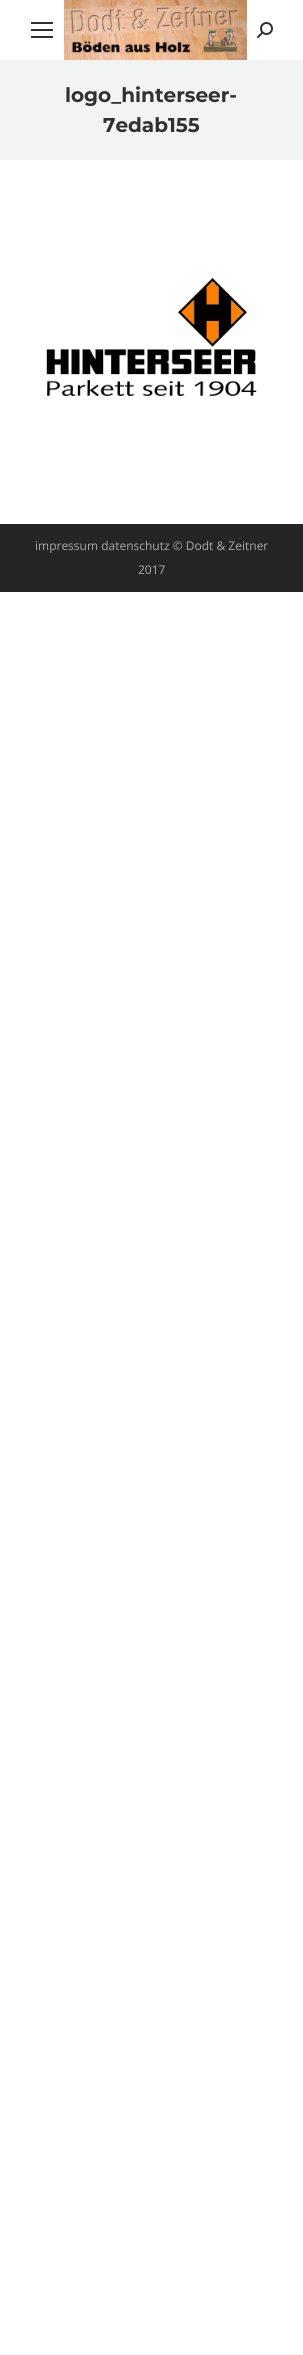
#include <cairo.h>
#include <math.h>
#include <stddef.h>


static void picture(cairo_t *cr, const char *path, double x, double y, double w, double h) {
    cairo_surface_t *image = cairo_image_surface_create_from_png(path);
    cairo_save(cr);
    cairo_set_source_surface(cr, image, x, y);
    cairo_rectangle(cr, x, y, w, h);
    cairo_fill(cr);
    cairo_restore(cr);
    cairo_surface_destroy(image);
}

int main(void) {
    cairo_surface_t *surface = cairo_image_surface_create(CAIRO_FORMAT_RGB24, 303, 2355);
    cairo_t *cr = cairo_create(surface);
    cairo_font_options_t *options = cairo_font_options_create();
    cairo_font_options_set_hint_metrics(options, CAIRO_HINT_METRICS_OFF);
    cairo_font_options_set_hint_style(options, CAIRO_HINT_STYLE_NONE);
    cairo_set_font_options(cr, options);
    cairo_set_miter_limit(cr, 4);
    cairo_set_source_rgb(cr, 1, 1, 1);
    cairo_paint(cr);
    cairo_set_source_rgb(cr, 0.188, 0.188, 0.188);
    cairo_rectangle(cr, 31, 22, 22, 2);
    cairo_fill(cr);
    cairo_rectangle(cr, 31, 29, 22, 2);
    cairo_fill(cr);
    cairo_rectangle(cr, 31, 36, 22, 2);
    cairo_fill(cr);
    picture(cr, "img1.png", 64, 0, 183, 60);
    picture(cr, "img2.png", 257, 22, 16, 16);
    cairo_set_source_rgb(cr, 0.949, 0.953, 0.953);
    cairo_rectangle(cr, 0, 60, 303, 100);
    cairo_fill(cr);
    cairo_select_font_face(cr, "Montserrat", CAIRO_FONT_SLANT_NORMAL, CAIRO_FONT_WEIGHT_BOLD);
    cairo_set_font_size(cr, 20);
    cairo_set_source_rgb(cr, 0.188, 0.188, 0.188);
    cairo_move_to(cr, 65, 102);
    cairo_show_text(cr, "logo_hinterseer-");
    cairo_move_to(cr, 103, 132);
    cairo_show_text(cr, "7edab155");
    picture(cr, "img3.png", 46, 278, 211, 118);
    cairo_set_source_rgb(cr, 0.145, 0.145, 0.145);
    cairo_rectangle(cr, 0, 524, 303, 68);
    cairo_fill(cr);
    cairo_select_font_face(cr, "Open Sans", CAIRO_FONT_SLANT_NORMAL, CAIRO_FONT_WEIGHT_NORMAL);
    cairo_set_font_size(cr, 12);
    cairo_set_source_rgb(cr, 0.667, 0.667, 0.667);
    cairo_move_to(cr, 35, 550);
    cairo_show_text(cr, "impressum datenschutz © Dodt & Zeitner");
    cairo_move_to(cr, 138, 574);
    cairo_show_text(cr, "2017");
    cairo_surface_write_to_png(surface, "page.png");
    cairo_font_options_destroy(options);
    cairo_destroy(cr);
    cairo_surface_destroy(surface);
    return 0;
}
